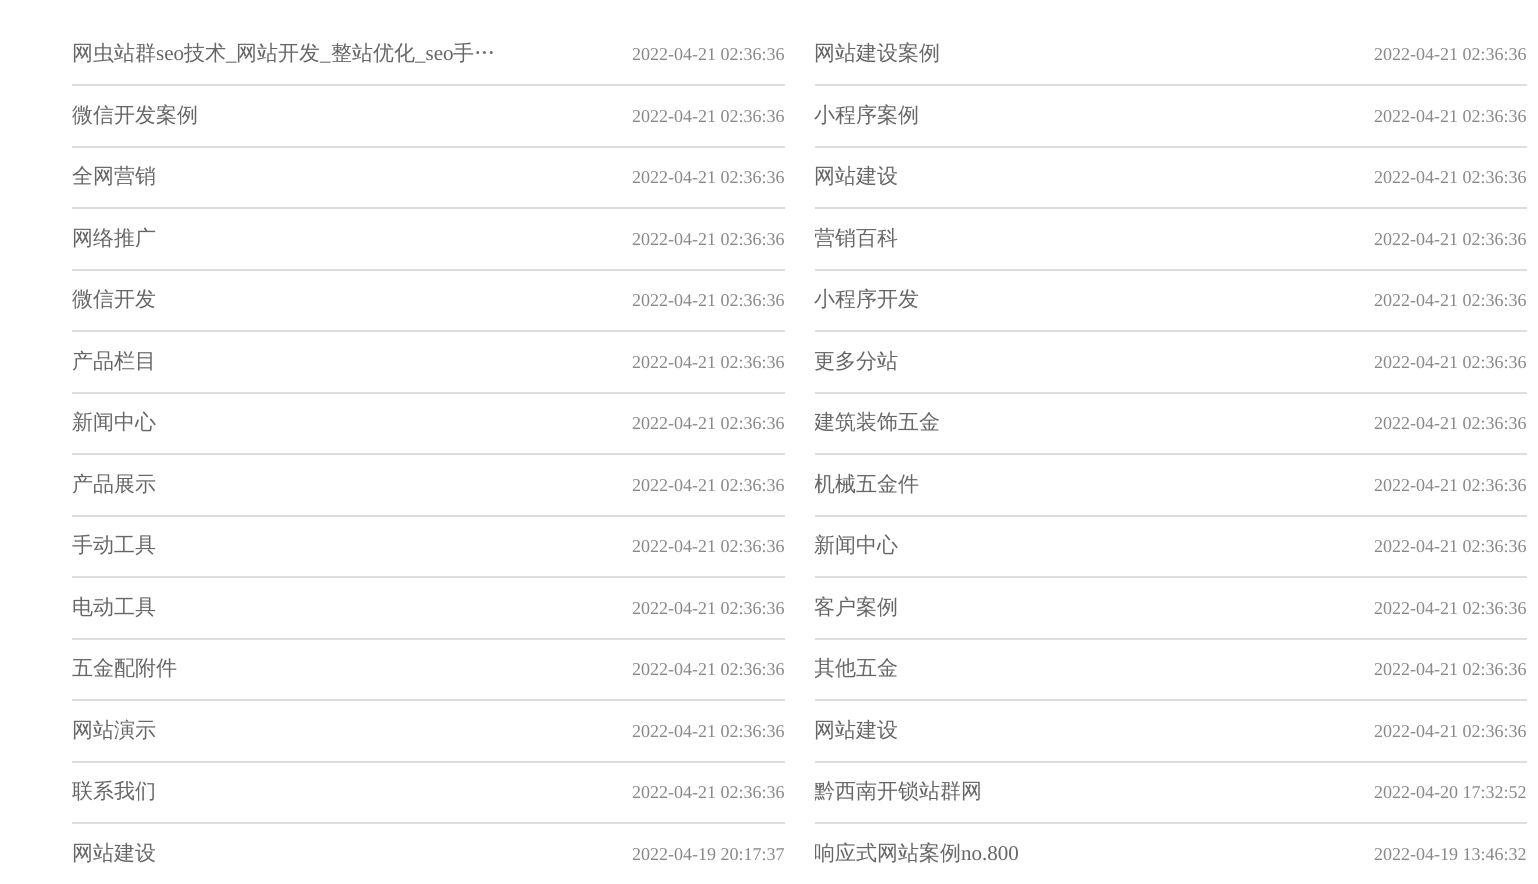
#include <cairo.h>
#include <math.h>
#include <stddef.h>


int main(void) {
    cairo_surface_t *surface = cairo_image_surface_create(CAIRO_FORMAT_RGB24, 1538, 884);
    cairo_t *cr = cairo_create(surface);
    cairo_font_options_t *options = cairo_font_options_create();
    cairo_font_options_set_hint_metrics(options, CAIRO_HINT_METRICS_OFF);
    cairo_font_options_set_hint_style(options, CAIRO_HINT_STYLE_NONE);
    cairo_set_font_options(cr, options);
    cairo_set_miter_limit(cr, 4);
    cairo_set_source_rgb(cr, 1, 1, 1);
    cairo_paint(cr);
    cairo_set_source_rgb(cr, 0.867, 0.867, 0.867);
    cairo_rectangle(cr, 72, 84, 713, 2);
    cairo_fill(cr);
    cairo_select_font_face(cr, "WenQuanYi Zen Hei Medium", CAIRO_FONT_SLANT_NORMAL, CAIRO_FONT_WEIGHT_NORMAL);
    cairo_set_font_size(cr, 21);
    cairo_set_source_rgb(cr, 0.4, 0.4, 0.4);
    cairo_move_to(cr, 72, 60);
    cairo_show_text(cr, "网虫站群");
    cairo_select_font_face(cr, "Liberation Serif", CAIRO_FONT_SLANT_NORMAL, CAIRO_FONT_WEIGHT_NORMAL);
    cairo_move_to(cr, 156, 60);
    cairo_show_text(cr, "seo");
    cairo_select_font_face(cr, "WenQuanYi Zen Hei Medium", CAIRO_FONT_SLANT_NORMAL, CAIRO_FONT_WEIGHT_NORMAL);
    cairo_move_to(cr, 184, 60);
    cairo_show_text(cr, "技术");
    cairo_select_font_face(cr, "Liberation Serif", CAIRO_FONT_SLANT_NORMAL, CAIRO_FONT_WEIGHT_NORMAL);
    cairo_move_to(cr, 226, 60);
    cairo_show_text(cr, "_");
    cairo_select_font_face(cr, "WenQuanYi Zen Hei Medium", CAIRO_FONT_SLANT_NORMAL, CAIRO_FONT_WEIGHT_NORMAL);
    cairo_move_to(cr, 236, 60);
    cairo_show_text(cr, "网站开发");
    cairo_select_font_face(cr, "Liberation Serif", CAIRO_FONT_SLANT_NORMAL, CAIRO_FONT_WEIGHT_NORMAL);
    cairo_move_to(cr, 320, 60);
    cairo_show_text(cr, "_");
    cairo_select_font_face(cr, "WenQuanYi Zen Hei Medium", CAIRO_FONT_SLANT_NORMAL, CAIRO_FONT_WEIGHT_NORMAL);
    cairo_move_to(cr, 331, 60);
    cairo_show_text(cr, "整站优化");
    cairo_select_font_face(cr, "Liberation Serif", CAIRO_FONT_SLANT_NORMAL, CAIRO_FONT_WEIGHT_NORMAL);
    cairo_move_to(cr, 415, 60);
    cairo_show_text(cr, "_seo");
    cairo_select_font_face(cr, "WenQuanYi Zen Hei Medium", CAIRO_FONT_SLANT_NORMAL, CAIRO_FONT_WEIGHT_NORMAL);
    cairo_move_to(cr, 453, 60);
    cairo_show_text(cr, "手…");
    cairo_select_font_face(cr, "Liberation Serif", CAIRO_FONT_SLANT_NORMAL, CAIRO_FONT_WEIGHT_NORMAL);
    cairo_set_font_size(cr, 18);
    cairo_set_source_rgb(cr, 0.533, 0.533, 0.533);
    cairo_move_to(cr, 632, 60);
    cairo_show_text(cr, "2022-04-21 02:36:36");
    cairo_set_source_rgb(cr, 0.867, 0.867, 0.867);
    cairo_rectangle(cr, 815, 84, 712, 2);
    cairo_fill(cr);
    cairo_select_font_face(cr, "WenQuanYi Zen Hei Medium", CAIRO_FONT_SLANT_NORMAL, CAIRO_FONT_WEIGHT_NORMAL);
    cairo_set_font_size(cr, 21);
    cairo_set_source_rgb(cr, 0.4, 0.4, 0.4);
    cairo_move_to(cr, 814, 60);
    cairo_show_text(cr, "网站建设案例");
    cairo_select_font_face(cr, "Liberation Serif", CAIRO_FONT_SLANT_NORMAL, CAIRO_FONT_WEIGHT_NORMAL);
    cairo_set_font_size(cr, 18);
    cairo_set_source_rgb(cr, 0.533, 0.533, 0.533);
    cairo_move_to(cr, 1374, 60);
    cairo_show_text(cr, "2022-04-21 02:36:36");
    cairo_set_source_rgb(cr, 0.867, 0.867, 0.867);
    cairo_rectangle(cr, 72, 146, 713, 2);
    cairo_fill(cr);
    cairo_select_font_face(cr, "WenQuanYi Zen Hei Medium", CAIRO_FONT_SLANT_NORMAL, CAIRO_FONT_WEIGHT_NORMAL);
    cairo_set_font_size(cr, 21);
    cairo_set_source_rgb(cr, 0.4, 0.4, 0.4);
    cairo_move_to(cr, 72, 122);
    cairo_show_text(cr, "微信开发案例");
    cairo_select_font_face(cr, "Liberation Serif", CAIRO_FONT_SLANT_NORMAL, CAIRO_FONT_WEIGHT_NORMAL);
    cairo_set_font_size(cr, 18);
    cairo_set_source_rgb(cr, 0.533, 0.533, 0.533);
    cairo_move_to(cr, 632, 122);
    cairo_show_text(cr, "2022-04-21 02:36:36");
    cairo_set_source_rgb(cr, 0.867, 0.867, 0.867);
    cairo_rectangle(cr, 815, 146, 712, 2);
    cairo_fill(cr);
    cairo_select_font_face(cr, "WenQuanYi Zen Hei Medium", CAIRO_FONT_SLANT_NORMAL, CAIRO_FONT_WEIGHT_NORMAL);
    cairo_set_font_size(cr, 21);
    cairo_set_source_rgb(cr, 0.4, 0.4, 0.4);
    cairo_move_to(cr, 814, 122);
    cairo_show_text(cr, "小程序案例");
    cairo_select_font_face(cr, "Liberation Serif", CAIRO_FONT_SLANT_NORMAL, CAIRO_FONT_WEIGHT_NORMAL);
    cairo_set_font_size(cr, 18);
    cairo_set_source_rgb(cr, 0.533, 0.533, 0.533);
    cairo_move_to(cr, 1374, 122);
    cairo_show_text(cr, "2022-04-21 02:36:36");
    cairo_set_source_rgb(cr, 0.867, 0.867, 0.867);
    cairo_rectangle(cr, 72, 207, 713, 2);
    cairo_fill(cr);
    cairo_select_font_face(cr, "WenQuanYi Zen Hei Medium", CAIRO_FONT_SLANT_NORMAL, CAIRO_FONT_WEIGHT_NORMAL);
    cairo_set_font_size(cr, 21);
    cairo_set_source_rgb(cr, 0.4, 0.4, 0.4);
    cairo_move_to(cr, 72, 183);
    cairo_show_text(cr, "全网营销");
    cairo_select_font_face(cr, "Liberation Serif", CAIRO_FONT_SLANT_NORMAL, CAIRO_FONT_WEIGHT_NORMAL);
    cairo_set_font_size(cr, 18);
    cairo_set_source_rgb(cr, 0.533, 0.533, 0.533);
    cairo_move_to(cr, 632, 183);
    cairo_show_text(cr, "2022-04-21 02:36:36");
    cairo_set_source_rgb(cr, 0.867, 0.867, 0.867);
    cairo_rectangle(cr, 815, 207, 712, 2);
    cairo_fill(cr);
    cairo_select_font_face(cr, "WenQuanYi Zen Hei Medium", CAIRO_FONT_SLANT_NORMAL, CAIRO_FONT_WEIGHT_NORMAL);
    cairo_set_font_size(cr, 21);
    cairo_set_source_rgb(cr, 0.4, 0.4, 0.4);
    cairo_move_to(cr, 814, 183);
    cairo_show_text(cr, "网站建设");
    cairo_select_font_face(cr, "Liberation Serif", CAIRO_FONT_SLANT_NORMAL, CAIRO_FONT_WEIGHT_NORMAL);
    cairo_set_font_size(cr, 18);
    cairo_set_source_rgb(cr, 0.533, 0.533, 0.533);
    cairo_move_to(cr, 1374, 183);
    cairo_show_text(cr, "2022-04-21 02:36:36");
    cairo_set_source_rgb(cr, 0.867, 0.867, 0.867);
    cairo_rectangle(cr, 72, 269, 713, 2);
    cairo_fill(cr);
    cairo_select_font_face(cr, "WenQuanYi Zen Hei Medium", CAIRO_FONT_SLANT_NORMAL, CAIRO_FONT_WEIGHT_NORMAL);
    cairo_set_font_size(cr, 21);
    cairo_set_source_rgb(cr, 0.4, 0.4, 0.4);
    cairo_move_to(cr, 72, 245);
    cairo_show_text(cr, "网络推广");
    cairo_select_font_face(cr, "Liberation Serif", CAIRO_FONT_SLANT_NORMAL, CAIRO_FONT_WEIGHT_NORMAL);
    cairo_set_font_size(cr, 18);
    cairo_set_source_rgb(cr, 0.533, 0.533, 0.533);
    cairo_move_to(cr, 632, 245);
    cairo_show_text(cr, "2022-04-21 02:36:36");
    cairo_set_source_rgb(cr, 0.867, 0.867, 0.867);
    cairo_rectangle(cr, 815, 269, 712, 2);
    cairo_fill(cr);
    cairo_save(cr);
    cairo_rectangle(cr, 815, 209, 427, 60);
    cairo_clip(cr);
    cairo_select_font_face(cr, "WenQuanYi Zen Hei Medium", CAIRO_FONT_SLANT_NORMAL, CAIRO_FONT_WEIGHT_NORMAL);
    cairo_set_font_size(cr, 21);
    cairo_set_source_rgb(cr, 0.4, 0.4, 0.4);
    cairo_move_to(cr, 814, 245);
    cairo_show_text(cr, "营销百科");
    cairo_restore(cr);
    cairo_set_source_rgb(cr, 0.533, 0.533, 0.533);
    cairo_move_to(cr, 1374, 245);
    cairo_show_text(cr, "2022-04-21 02:36:36");
    cairo_set_source_rgb(cr, 0.867, 0.867, 0.867);
    cairo_rectangle(cr, 72, 330, 713, 2);
    cairo_fill(cr);
    cairo_select_font_face(cr, "WenQuanYi Zen Hei Medium", CAIRO_FONT_SLANT_NORMAL, CAIRO_FONT_WEIGHT_NORMAL);
    cairo_set_font_size(cr, 21);
    cairo_set_source_rgb(cr, 0.4, 0.4, 0.4);
    cairo_move_to(cr, 72, 306);
    cairo_show_text(cr, "微信开发");
    cairo_select_font_face(cr, "Liberation Serif", CAIRO_FONT_SLANT_NORMAL, CAIRO_FONT_WEIGHT_NORMAL);
    cairo_set_font_size(cr, 18);
    cairo_set_source_rgb(cr, 0.533, 0.533, 0.533);
    cairo_move_to(cr, 632, 306);
    cairo_show_text(cr, "2022-04-21 02:36:36");
    cairo_set_source_rgb(cr, 0.867, 0.867, 0.867);
    cairo_rectangle(cr, 815, 330, 712, 2);
    cairo_fill(cr);
    cairo_select_font_face(cr, "WenQuanYi Zen Hei Medium", CAIRO_FONT_SLANT_NORMAL, CAIRO_FONT_WEIGHT_NORMAL);
    cairo_set_font_size(cr, 21);
    cairo_set_source_rgb(cr, 0.4, 0.4, 0.4);
    cairo_move_to(cr, 814, 306);
    cairo_show_text(cr, "小程序开发");
    cairo_select_font_face(cr, "Liberation Serif", CAIRO_FONT_SLANT_NORMAL, CAIRO_FONT_WEIGHT_NORMAL);
    cairo_set_font_size(cr, 18);
    cairo_set_source_rgb(cr, 0.533, 0.533, 0.533);
    cairo_move_to(cr, 1374, 306);
    cairo_show_text(cr, "2022-04-21 02:36:36");
    cairo_set_source_rgb(cr, 0.867, 0.867, 0.867);
    cairo_rectangle(cr, 72, 392, 713, 2);
    cairo_fill(cr);
    cairo_select_font_face(cr, "WenQuanYi Zen Hei Medium", CAIRO_FONT_SLANT_NORMAL, CAIRO_FONT_WEIGHT_NORMAL);
    cairo_set_font_size(cr, 21);
    cairo_set_source_rgb(cr, 0.4, 0.4, 0.4);
    cairo_move_to(cr, 72, 368);
    cairo_show_text(cr, "产品栏目");
    cairo_select_font_face(cr, "Liberation Serif", CAIRO_FONT_SLANT_NORMAL, CAIRO_FONT_WEIGHT_NORMAL);
    cairo_set_font_size(cr, 18);
    cairo_set_source_rgb(cr, 0.533, 0.533, 0.533);
    cairo_move_to(cr, 632, 368);
    cairo_show_text(cr, "2022-04-21 02:36:36");
    cairo_set_source_rgb(cr, 0.867, 0.867, 0.867);
    cairo_rectangle(cr, 815, 392, 712, 2);
    cairo_fill(cr);
    cairo_select_font_face(cr, "WenQuanYi Zen Hei Medium", CAIRO_FONT_SLANT_NORMAL, CAIRO_FONT_WEIGHT_NORMAL);
    cairo_set_font_size(cr, 21);
    cairo_set_source_rgb(cr, 0.4, 0.4, 0.4);
    cairo_move_to(cr, 814, 368);
    cairo_show_text(cr, "更多分站");
    cairo_select_font_face(cr, "Liberation Serif", CAIRO_FONT_SLANT_NORMAL, CAIRO_FONT_WEIGHT_NORMAL);
    cairo_set_font_size(cr, 18);
    cairo_set_source_rgb(cr, 0.533, 0.533, 0.533);
    cairo_move_to(cr, 1374, 368);
    cairo_show_text(cr, "2022-04-21 02:36:36");
    cairo_set_source_rgb(cr, 0.867, 0.867, 0.867);
    cairo_rectangle(cr, 72, 453, 713, 2);
    cairo_fill(cr);
    cairo_select_font_face(cr, "WenQuanYi Zen Hei Medium", CAIRO_FONT_SLANT_NORMAL, CAIRO_FONT_WEIGHT_NORMAL);
    cairo_set_font_size(cr, 21);
    cairo_set_source_rgb(cr, 0.4, 0.4, 0.4);
    cairo_move_to(cr, 72, 429);
    cairo_show_text(cr, "新闻中心");
    cairo_select_font_face(cr, "Liberation Serif", CAIRO_FONT_SLANT_NORMAL, CAIRO_FONT_WEIGHT_NORMAL);
    cairo_set_font_size(cr, 18);
    cairo_set_source_rgb(cr, 0.533, 0.533, 0.533);
    cairo_move_to(cr, 632, 429);
    cairo_show_text(cr, "2022-04-21 02:36:36");
    cairo_set_source_rgb(cr, 0.867, 0.867, 0.867);
    cairo_rectangle(cr, 815, 453, 712, 2);
    cairo_fill(cr);
    cairo_save(cr);
    cairo_rectangle(cr, 815, 393, 427, 60);
    cairo_clip(cr);
    cairo_select_font_face(cr, "WenQuanYi Zen Hei Medium", CAIRO_FONT_SLANT_NORMAL, CAIRO_FONT_WEIGHT_NORMAL);
    cairo_set_font_size(cr, 21);
    cairo_set_source_rgb(cr, 0.4, 0.4, 0.4);
    cairo_move_to(cr, 814, 429);
    cairo_show_text(cr, "建筑装饰五金");
    cairo_restore(cr);
    cairo_set_source_rgb(cr, 0.533, 0.533, 0.533);
    cairo_move_to(cr, 1374, 429);
    cairo_show_text(cr, "2022-04-21 02:36:36");
    cairo_set_source_rgb(cr, 0.867, 0.867, 0.867);
    cairo_rectangle(cr, 72, 515, 713, 2);
    cairo_fill(cr);
    cairo_select_font_face(cr, "WenQuanYi Zen Hei Medium", CAIRO_FONT_SLANT_NORMAL, CAIRO_FONT_WEIGHT_NORMAL);
    cairo_set_font_size(cr, 21);
    cairo_set_source_rgb(cr, 0.4, 0.4, 0.4);
    cairo_move_to(cr, 72, 491);
    cairo_show_text(cr, "产品展示");
    cairo_select_font_face(cr, "Liberation Serif", CAIRO_FONT_SLANT_NORMAL, CAIRO_FONT_WEIGHT_NORMAL);
    cairo_set_font_size(cr, 18);
    cairo_set_source_rgb(cr, 0.533, 0.533, 0.533);
    cairo_move_to(cr, 632, 491);
    cairo_show_text(cr, "2022-04-21 02:36:36");
    cairo_set_source_rgb(cr, 0.867, 0.867, 0.867);
    cairo_rectangle(cr, 815, 515, 712, 2);
    cairo_fill(cr);
    cairo_save(cr);
    cairo_rectangle(cr, 815, 455, 427, 60);
    cairo_clip(cr);
    cairo_select_font_face(cr, "WenQuanYi Zen Hei Medium", CAIRO_FONT_SLANT_NORMAL, CAIRO_FONT_WEIGHT_NORMAL);
    cairo_set_font_size(cr, 21);
    cairo_set_source_rgb(cr, 0.4, 0.4, 0.4);
    cairo_move_to(cr, 814, 491);
    cairo_show_text(cr, "机械五金件");
    cairo_restore(cr);
    cairo_set_source_rgb(cr, 0.533, 0.533, 0.533);
    cairo_move_to(cr, 1374, 491);
    cairo_show_text(cr, "2022-04-21 02:36:36");
    cairo_set_source_rgb(cr, 0.867, 0.867, 0.867);
    cairo_rectangle(cr, 72, 576, 713, 2);
    cairo_fill(cr);
    cairo_select_font_face(cr, "WenQuanYi Zen Hei Medium", CAIRO_FONT_SLANT_NORMAL, CAIRO_FONT_WEIGHT_NORMAL);
    cairo_set_font_size(cr, 21);
    cairo_set_source_rgb(cr, 0.4, 0.4, 0.4);
    cairo_move_to(cr, 72, 552);
    cairo_show_text(cr, "手动工具");
    cairo_select_font_face(cr, "Liberation Serif", CAIRO_FONT_SLANT_NORMAL, CAIRO_FONT_WEIGHT_NORMAL);
    cairo_set_font_size(cr, 18);
    cairo_set_source_rgb(cr, 0.533, 0.533, 0.533);
    cairo_move_to(cr, 632, 552);
    cairo_show_text(cr, "2022-04-21 02:36:36");
    cairo_set_source_rgb(cr, 0.867, 0.867, 0.867);
    cairo_rectangle(cr, 815, 576, 712, 2);
    cairo_fill(cr);
    cairo_select_font_face(cr, "WenQuanYi Zen Hei Medium", CAIRO_FONT_SLANT_NORMAL, CAIRO_FONT_WEIGHT_NORMAL);
    cairo_set_font_size(cr, 21);
    cairo_set_source_rgb(cr, 0.4, 0.4, 0.4);
    cairo_move_to(cr, 814, 552);
    cairo_show_text(cr, "新闻中心");
    cairo_select_font_face(cr, "Liberation Serif", CAIRO_FONT_SLANT_NORMAL, CAIRO_FONT_WEIGHT_NORMAL);
    cairo_set_font_size(cr, 18);
    cairo_set_source_rgb(cr, 0.533, 0.533, 0.533);
    cairo_move_to(cr, 1374, 552);
    cairo_show_text(cr, "2022-04-21 02:36:36");
    cairo_set_source_rgb(cr, 0.867, 0.867, 0.867);
    cairo_rectangle(cr, 72, 638, 713, 2);
    cairo_fill(cr);
    cairo_select_font_face(cr, "WenQuanYi Zen Hei Medium", CAIRO_FONT_SLANT_NORMAL, CAIRO_FONT_WEIGHT_NORMAL);
    cairo_set_font_size(cr, 21);
    cairo_set_source_rgb(cr, 0.4, 0.4, 0.4);
    cairo_move_to(cr, 72, 614);
    cairo_show_text(cr, "电动工具");
    cairo_select_font_face(cr, "Liberation Serif", CAIRO_FONT_SLANT_NORMAL, CAIRO_FONT_WEIGHT_NORMAL);
    cairo_set_font_size(cr, 18);
    cairo_set_source_rgb(cr, 0.533, 0.533, 0.533);
    cairo_move_to(cr, 632, 614);
    cairo_show_text(cr, "2022-04-21 02:36:36");
    cairo_set_source_rgb(cr, 0.867, 0.867, 0.867);
    cairo_rectangle(cr, 815, 638, 712, 2);
    cairo_fill(cr);
    cairo_select_font_face(cr, "WenQuanYi Zen Hei Medium", CAIRO_FONT_SLANT_NORMAL, CAIRO_FONT_WEIGHT_NORMAL);
    cairo_set_font_size(cr, 21);
    cairo_set_source_rgb(cr, 0.4, 0.4, 0.4);
    cairo_move_to(cr, 814, 614);
    cairo_show_text(cr, "客户案例");
    cairo_select_font_face(cr, "Liberation Serif", CAIRO_FONT_SLANT_NORMAL, CAIRO_FONT_WEIGHT_NORMAL);
    cairo_set_font_size(cr, 18);
    cairo_set_source_rgb(cr, 0.533, 0.533, 0.533);
    cairo_move_to(cr, 1374, 614);
    cairo_show_text(cr, "2022-04-21 02:36:36");
    cairo_set_source_rgb(cr, 0.867, 0.867, 0.867);
    cairo_rectangle(cr, 72, 699, 713, 2);
    cairo_fill(cr);
    cairo_select_font_face(cr, "WenQuanYi Zen Hei Medium", CAIRO_FONT_SLANT_NORMAL, CAIRO_FONT_WEIGHT_NORMAL);
    cairo_set_font_size(cr, 21);
    cairo_set_source_rgb(cr, 0.4, 0.4, 0.4);
    cairo_move_to(cr, 72, 675);
    cairo_show_text(cr, "五金配附件");
    cairo_select_font_face(cr, "Liberation Serif", CAIRO_FONT_SLANT_NORMAL, CAIRO_FONT_WEIGHT_NORMAL);
    cairo_set_font_size(cr, 18);
    cairo_set_source_rgb(cr, 0.533, 0.533, 0.533);
    cairo_move_to(cr, 632, 675);
    cairo_show_text(cr, "2022-04-21 02:36:36");
    cairo_set_source_rgb(cr, 0.867, 0.867, 0.867);
    cairo_rectangle(cr, 815, 699, 712, 2);
    cairo_fill(cr);
    cairo_save(cr);
    cairo_rectangle(cr, 815, 639, 427, 60);
    cairo_clip(cr);
    cairo_select_font_face(cr, "WenQuanYi Zen Hei Medium", CAIRO_FONT_SLANT_NORMAL, CAIRO_FONT_WEIGHT_NORMAL);
    cairo_set_font_size(cr, 21);
    cairo_set_source_rgb(cr, 0.4, 0.4, 0.4);
    cairo_move_to(cr, 814, 675);
    cairo_show_text(cr, "其他五金");
    cairo_restore(cr);
    cairo_set_source_rgb(cr, 0.533, 0.533, 0.533);
    cairo_move_to(cr, 1374, 675);
    cairo_show_text(cr, "2022-04-21 02:36:36");
    cairo_set_source_rgb(cr, 0.867, 0.867, 0.867);
    cairo_rectangle(cr, 72, 761, 713, 2);
    cairo_fill(cr);
    cairo_select_font_face(cr, "WenQuanYi Zen Hei Medium", CAIRO_FONT_SLANT_NORMAL, CAIRO_FONT_WEIGHT_NORMAL);
    cairo_set_font_size(cr, 21);
    cairo_set_source_rgb(cr, 0.4, 0.4, 0.4);
    cairo_move_to(cr, 72, 737);
    cairo_show_text(cr, "网站演示");
    cairo_select_font_face(cr, "Liberation Serif", CAIRO_FONT_SLANT_NORMAL, CAIRO_FONT_WEIGHT_NORMAL);
    cairo_set_font_size(cr, 18);
    cairo_set_source_rgb(cr, 0.533, 0.533, 0.533);
    cairo_move_to(cr, 632, 737);
    cairo_show_text(cr, "2022-04-21 02:36:36");
    cairo_set_source_rgb(cr, 0.867, 0.867, 0.867);
    cairo_rectangle(cr, 815, 761, 712, 2);
    cairo_fill(cr);
    cairo_select_font_face(cr, "WenQuanYi Zen Hei Medium", CAIRO_FONT_SLANT_NORMAL, CAIRO_FONT_WEIGHT_NORMAL);
    cairo_set_font_size(cr, 21);
    cairo_set_source_rgb(cr, 0.4, 0.4, 0.4);
    cairo_move_to(cr, 814, 737);
    cairo_show_text(cr, "网站建设");
    cairo_select_font_face(cr, "Liberation Serif", CAIRO_FONT_SLANT_NORMAL, CAIRO_FONT_WEIGHT_NORMAL);
    cairo_set_font_size(cr, 18);
    cairo_set_source_rgb(cr, 0.533, 0.533, 0.533);
    cairo_move_to(cr, 1374, 737);
    cairo_show_text(cr, "2022-04-21 02:36:36");
    cairo_set_source_rgb(cr, 0.867, 0.867, 0.867);
    cairo_rectangle(cr, 72, 822, 713, 2);
    cairo_fill(cr);
    cairo_select_font_face(cr, "WenQuanYi Zen Hei Medium", CAIRO_FONT_SLANT_NORMAL, CAIRO_FONT_WEIGHT_NORMAL);
    cairo_set_font_size(cr, 21);
    cairo_set_source_rgb(cr, 0.4, 0.4, 0.4);
    cairo_move_to(cr, 72, 798);
    cairo_show_text(cr, "联系我们");
    cairo_select_font_face(cr, "Liberation Serif", CAIRO_FONT_SLANT_NORMAL, CAIRO_FONT_WEIGHT_NORMAL);
    cairo_set_font_size(cr, 18);
    cairo_set_source_rgb(cr, 0.533, 0.533, 0.533);
    cairo_move_to(cr, 632, 798);
    cairo_show_text(cr, "2022-04-21 02:36:36");
    cairo_set_source_rgb(cr, 0.867, 0.867, 0.867);
    cairo_rectangle(cr, 815, 822, 712, 2);
    cairo_fill(cr);
    cairo_save(cr);
    cairo_rectangle(cr, 815, 762, 427, 60);
    cairo_clip(cr);
    cairo_select_font_face(cr, "WenQuanYi Zen Hei Medium", CAIRO_FONT_SLANT_NORMAL, CAIRO_FONT_WEIGHT_NORMAL);
    cairo_set_font_size(cr, 21);
    cairo_set_source_rgb(cr, 0.4, 0.4, 0.4);
    cairo_move_to(cr, 814, 798);
    cairo_show_text(cr, "黔西南开锁站群网");
    cairo_restore(cr);
    cairo_set_source_rgb(cr, 0.533, 0.533, 0.533);
    cairo_move_to(cr, 1374, 798);
    cairo_show_text(cr, "2022-04-20 17:32:52");
    cairo_select_font_face(cr, "WenQuanYi Zen Hei Medium", CAIRO_FONT_SLANT_NORMAL, CAIRO_FONT_WEIGHT_NORMAL);
    cairo_set_font_size(cr, 21);
    cairo_set_source_rgb(cr, 0.4, 0.4, 0.4);
    cairo_move_to(cr, 72, 860);
    cairo_show_text(cr, "网站建设");
    cairo_select_font_face(cr, "Liberation Serif", CAIRO_FONT_SLANT_NORMAL, CAIRO_FONT_WEIGHT_NORMAL);
    cairo_set_font_size(cr, 18);
    cairo_set_source_rgb(cr, 0.533, 0.533, 0.533);
    cairo_move_to(cr, 632, 860);
    cairo_show_text(cr, "2022-04-19 20:17:37");
    cairo_save(cr);
    cairo_rectangle(cr, 815, 824, 427, 60);
    cairo_clip(cr);
    cairo_select_font_face(cr, "WenQuanYi Zen Hei Medium", CAIRO_FONT_SLANT_NORMAL, CAIRO_FONT_WEIGHT_NORMAL);
    cairo_set_font_size(cr, 21);
    cairo_set_source_rgb(cr, 0.4, 0.4, 0.4);
    cairo_move_to(cr, 814, 860);
    cairo_show_text(cr, "响应式网站案例");
    cairo_restore(cr);
    cairo_set_font_size(cr, 21);
    cairo_set_source_rgb(cr, 0.4, 0.4, 0.4);
    cairo_move_to(cr, 961, 860);
    cairo_show_text(cr, "no.800");
    cairo_set_font_size(cr, 18);
    cairo_set_source_rgb(cr, 0.533, 0.533, 0.533);
    cairo_move_to(cr, 1374, 860);
    cairo_show_text(cr, "2022-04-19 13:46:32");
    cairo_surface_write_to_png(surface, "page.png");
    cairo_font_options_destroy(options);
    cairo_destroy(cr);
    cairo_surface_destroy(surface);
    return 0;
}
